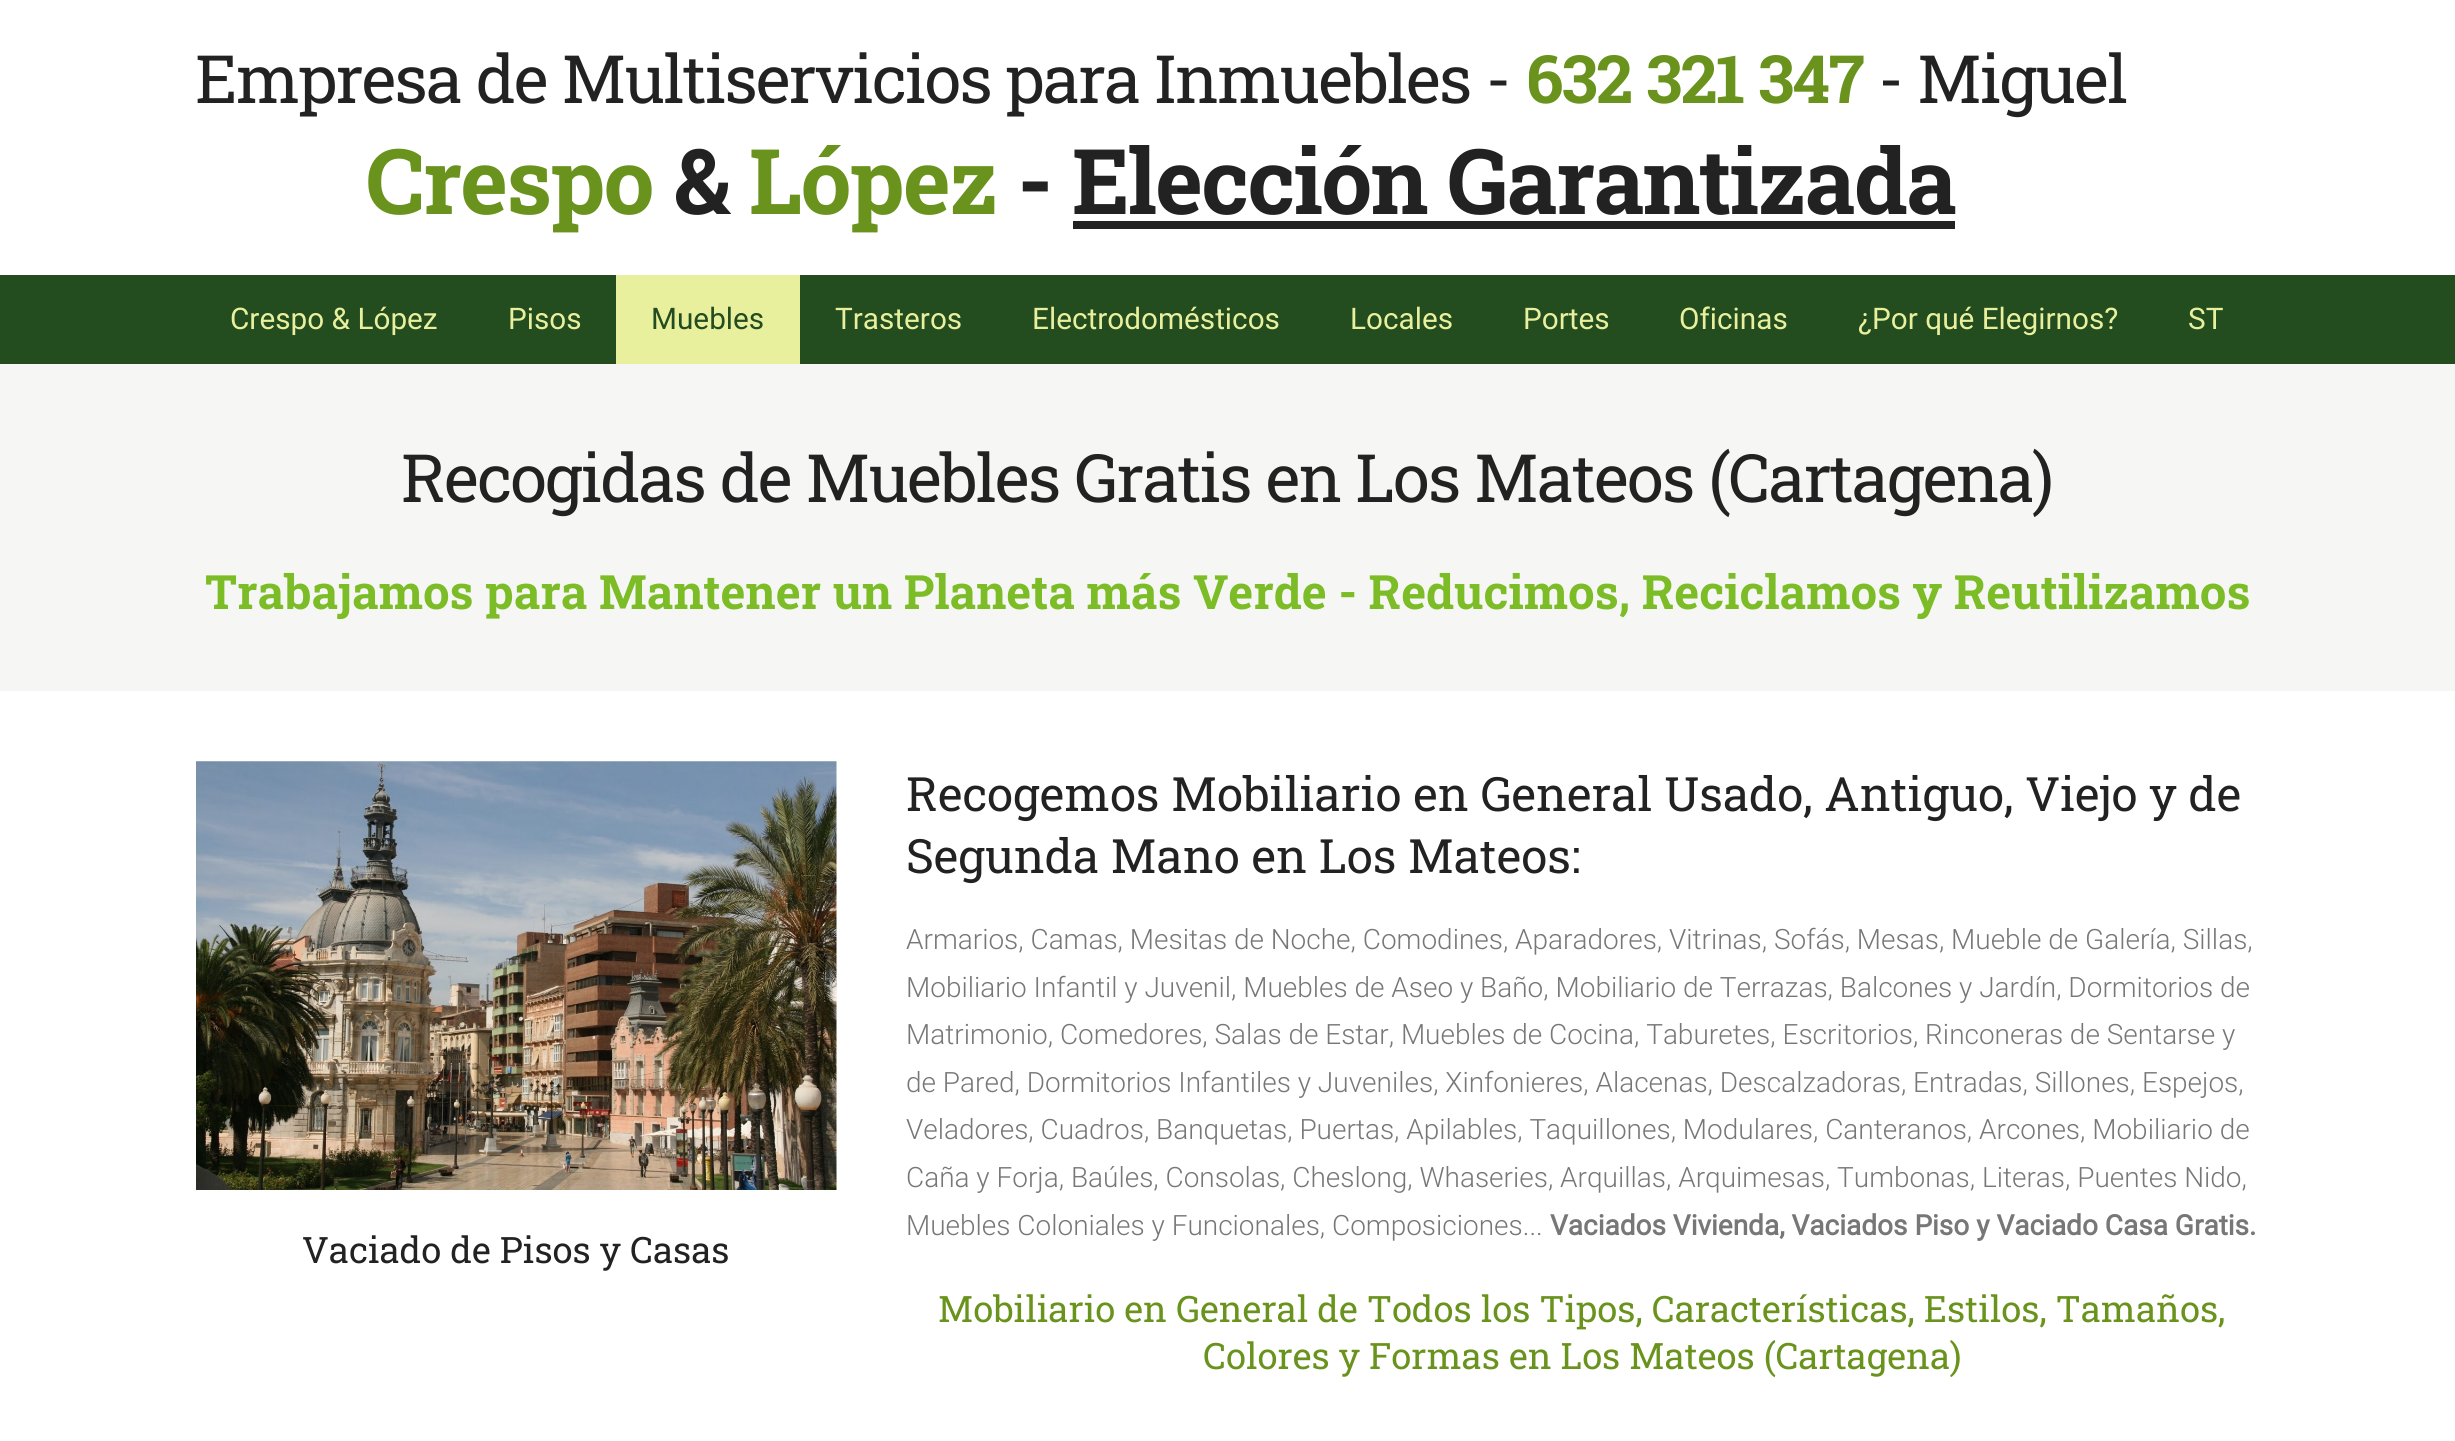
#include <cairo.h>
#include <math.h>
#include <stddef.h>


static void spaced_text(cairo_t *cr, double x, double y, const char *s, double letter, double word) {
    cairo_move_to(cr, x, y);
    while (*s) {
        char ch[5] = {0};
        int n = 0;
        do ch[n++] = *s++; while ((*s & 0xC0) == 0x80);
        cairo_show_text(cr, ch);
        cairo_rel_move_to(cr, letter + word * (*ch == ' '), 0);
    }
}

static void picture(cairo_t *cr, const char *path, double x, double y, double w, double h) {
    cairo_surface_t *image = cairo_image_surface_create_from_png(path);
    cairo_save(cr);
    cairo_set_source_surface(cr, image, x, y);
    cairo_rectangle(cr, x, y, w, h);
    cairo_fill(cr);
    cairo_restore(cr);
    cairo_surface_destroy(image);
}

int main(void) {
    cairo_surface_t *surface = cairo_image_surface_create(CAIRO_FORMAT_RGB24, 2455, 1441);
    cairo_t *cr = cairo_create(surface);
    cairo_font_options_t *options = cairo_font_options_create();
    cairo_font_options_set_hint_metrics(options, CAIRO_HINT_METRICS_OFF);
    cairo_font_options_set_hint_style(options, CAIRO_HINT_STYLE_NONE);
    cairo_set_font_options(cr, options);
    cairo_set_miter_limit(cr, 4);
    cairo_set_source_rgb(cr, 1, 1, 1);
    cairo_paint(cr);
    cairo_select_font_face(cr, "Roboto Slab", CAIRO_FONT_SLANT_NORMAL, CAIRO_FONT_WEIGHT_NORMAL);
    cairo_set_font_size(cr, 66.6);
    cairo_set_source_rgb(cr, 0.133, 0.133, 0.133);
    spaced_text(cr, 195, 103, "Empresa de Multiservicios para Inmuebles -", -1.67, 0);
    cairo_select_font_face(cr, "Roboto Slab", CAIRO_FONT_SLANT_NORMAL, CAIRO_FONT_WEIGHT_BOLD);
    cairo_set_source_rgb(cr, 0.412, 0.576, 0.11);
    spaced_text(cr, 1526, 103, "632 321 347", -1.67, 0);
    cairo_select_font_face(cr, "Roboto Slab", CAIRO_FONT_SLANT_NORMAL, CAIRO_FONT_WEIGHT_NORMAL);
    cairo_set_source_rgb(cr, 0.133, 0.133, 0.133);
    spaced_text(cr, 1878, 103, "- Miguel", -1.67, 0);
    cairo_select_font_face(cr, "Roboto Slab", CAIRO_FONT_SLANT_NORMAL, CAIRO_FONT_WEIGHT_BOLD);
    cairo_set_font_size(cr, 90.6);
    cairo_set_source_rgb(cr, 0.412, 0.576, 0.11);
    spaced_text(cr, 366, 214, "Crespo", -1.67, 0);
    cairo_set_source_rgb(cr, 0.133, 0.133, 0.133);
    spaced_text(cr, 674, 214, "&", -1.67, 0);
    cairo_set_source_rgb(cr, 0.412, 0.576, 0.11);
    spaced_text(cr, 749, 214, "López", -1.67, 0);
    cairo_set_source_rgb(cr, 0.133, 0.133, 0.133);
    spaced_text(cr, 1017, 214, "- Elección Garantizada", -1.67, 0);
    cairo_rectangle(cr, 1073, 221, 882, 8);
    cairo_fill(cr);
    cairo_set_source_rgb(cr, 0.137, 0.298, 0.122);
    cairo_rectangle(cr, 0, 275, 2455, 89);
    cairo_fill(cr);
    cairo_select_font_face(cr, "Roboto", CAIRO_FONT_SLANT_NORMAL, CAIRO_FONT_WEIGHT_NORMAL);
    cairo_set_font_size(cr, 29.75);
    cairo_set_source_rgb(cr, 0.914, 0.941, 0.616);
    cairo_move_to(cr, 230, 329);
    cairo_show_text(cr, "Crespo & López");
    cairo_move_to(cr, 508, 329);
    cairo_show_text(cr, "Pisos");
    cairo_rectangle(cr, 616, 275, 184, 89);
    cairo_fill(cr);
    cairo_set_source_rgb(cr, 0.137, 0.298, 0.122);
    cairo_move_to(cr, 651, 329);
    cairo_show_text(cr, "Muebles");
    cairo_set_source_rgb(cr, 0.914, 0.941, 0.616);
    cairo_move_to(cr, 835, 329);
    cairo_show_text(cr, "Trasteros");
    cairo_move_to(cr, 1032, 329);
    cairo_show_text(cr, "Electrodomésticos");
    cairo_move_to(cr, 1350, 329);
    cairo_show_text(cr, "Locales");
    cairo_move_to(cr, 1523, 329);
    cairo_show_text(cr, "Portes");
    cairo_move_to(cr, 1679, 329);
    cairo_show_text(cr, "Oficinas");
    cairo_move_to(cr, 1858, 329);
    cairo_show_text(cr, "¿Por qué Elegirnos?");
    cairo_move_to(cr, 2188, 329);
    cairo_show_text(cr, "ST");
    cairo_set_source_rgb(cr, 0.961, 0.965, 0.957);
    cairo_rectangle(cr, 0, 364, 2455, 327);
    cairo_fill(cr);
    cairo_select_font_face(cr, "Roboto Slab", CAIRO_FONT_SLANT_NORMAL, CAIRO_FONT_WEIGHT_NORMAL);
    cairo_set_font_size(cr, 66.6);
    cairo_set_source_rgb(cr, 0.133, 0.133, 0.133);
    spaced_text(cr, 401, 502, "Recogidas de Muebles Gratis en Los Mateos (Cartagena)", -1.67, 0);
    cairo_select_font_face(cr, "Roboto Slab", CAIRO_FONT_SLANT_NORMAL, CAIRO_FONT_WEIGHT_BOLD);
    cairo_set_font_size(cr, 47.3);
    cairo_set_source_rgb(cr, 0.486, 0.737, 0.149);
    cairo_move_to(cr, 205, 609);
    cairo_show_text(cr, "Trabajamos para Mantener un Planeta más Verde - Reducimos, Reciclamos y Reutilizamos");
    picture(cr, "img1.png", 196, 761, 641, 429);
    cairo_select_font_face(cr, "Roboto Slab", CAIRO_FONT_SLANT_NORMAL, CAIRO_FONT_WEIGHT_NORMAL);
    cairo_set_font_size(cr, 36.4);
    cairo_set_source_rgb(cr, 0.133, 0.133, 0.133);
    cairo_move_to(cr, 302, 1263);
    cairo_show_text(cr, "Vaciado de Pisos y Casas");
    cairo_set_font_size(cr, 47.3);
    cairo_move_to(cr, 906, 811);
    cairo_show_text(cr, "Recogemos Mobiliario en General Usado, Antiguo, Viejo y de");
    cairo_move_to(cr, 906, 873);
    cairo_show_text(cr, "Segunda Mano en Los Mateos:");
    cairo_select_font_face(cr, "Roboto Light", CAIRO_FONT_SLANT_NORMAL, CAIRO_FONT_WEIGHT_NORMAL);
    cairo_set_font_size(cr, 28);
    cairo_set_source_rgb(cr, 0.467, 0.467, 0.467);
    cairo_move_to(cr, 906, 949);
    cairo_show_text(cr, "Armarios, Camas, Mesitas de Noche, Comodines, Aparadores, Vitrinas, Sofás, Mesas, Mueble de Galería, Sillas,");
    cairo_move_to(cr, 906, 997);
    cairo_show_text(cr, "Mobiliario Infantil y Juvenil, Muebles de Aseo y Baño, Mobiliario de Terrazas, Balcones y Jardín, Dormitorios de");
    cairo_move_to(cr, 906, 1044);
    cairo_show_text(cr, "Matrimonio, Comedores, Salas de Estar, Muebles de Cocina, Taburetes, Escritorios, Rinconeras de Sentarse y");
    cairo_move_to(cr, 906, 1092);
    cairo_show_text(cr, "de Pared, Dormitorios Infantiles y Juveniles, Xinfonieres, Alacenas, Descalzadoras, Entradas, Sillones, Espejos,");
    cairo_move_to(cr, 906, 1139);
    cairo_show_text(cr, "Veladores, Cuadros, Banquetas, Puertas, Apilables, Taquillones, Modulares, Canteranos, Arcones, Mobiliario de");
    cairo_move_to(cr, 906, 1187);
    cairo_show_text(cr, "Caña y Forja, Baúles, Consolas, Cheslong, Whaseries, Arquillas, Arquimesas, Tumbonas, Literas, Puentes Nido,");
    cairo_move_to(cr, 906, 1235);
    cairo_show_text(cr, "Muebles Coloniales y Funcionales, Composiciones...");
    cairo_select_font_face(cr, "Roboto", CAIRO_FONT_SLANT_NORMAL, CAIRO_FONT_WEIGHT_BOLD);
    cairo_move_to(cr, 1550, 1235);
    cairo_show_text(cr, "Vaciados Vivienda, Vaciados Piso y Vaciado Casa Gratis.");
    cairo_select_font_face(cr, "Roboto Slab", CAIRO_FONT_SLANT_NORMAL, CAIRO_FONT_WEIGHT_NORMAL);
    cairo_set_font_size(cr, 36.4);
    cairo_set_source_rgb(cr, 0.412, 0.576, 0.11);
    cairo_move_to(cr, 938, 1322);
    cairo_show_text(cr, "Mobiliario en General de Todos los Tipos, Características, Estilos, Tamaños,");
    cairo_move_to(cr, 1203, 1369);
    cairo_show_text(cr, "Colores y Formas en Los Mateos (Cartagena)");
    cairo_surface_write_to_png(surface, "page.png");
    cairo_font_options_destroy(options);
    cairo_destroy(cr);
    cairo_surface_destroy(surface);
    return 0;
}
